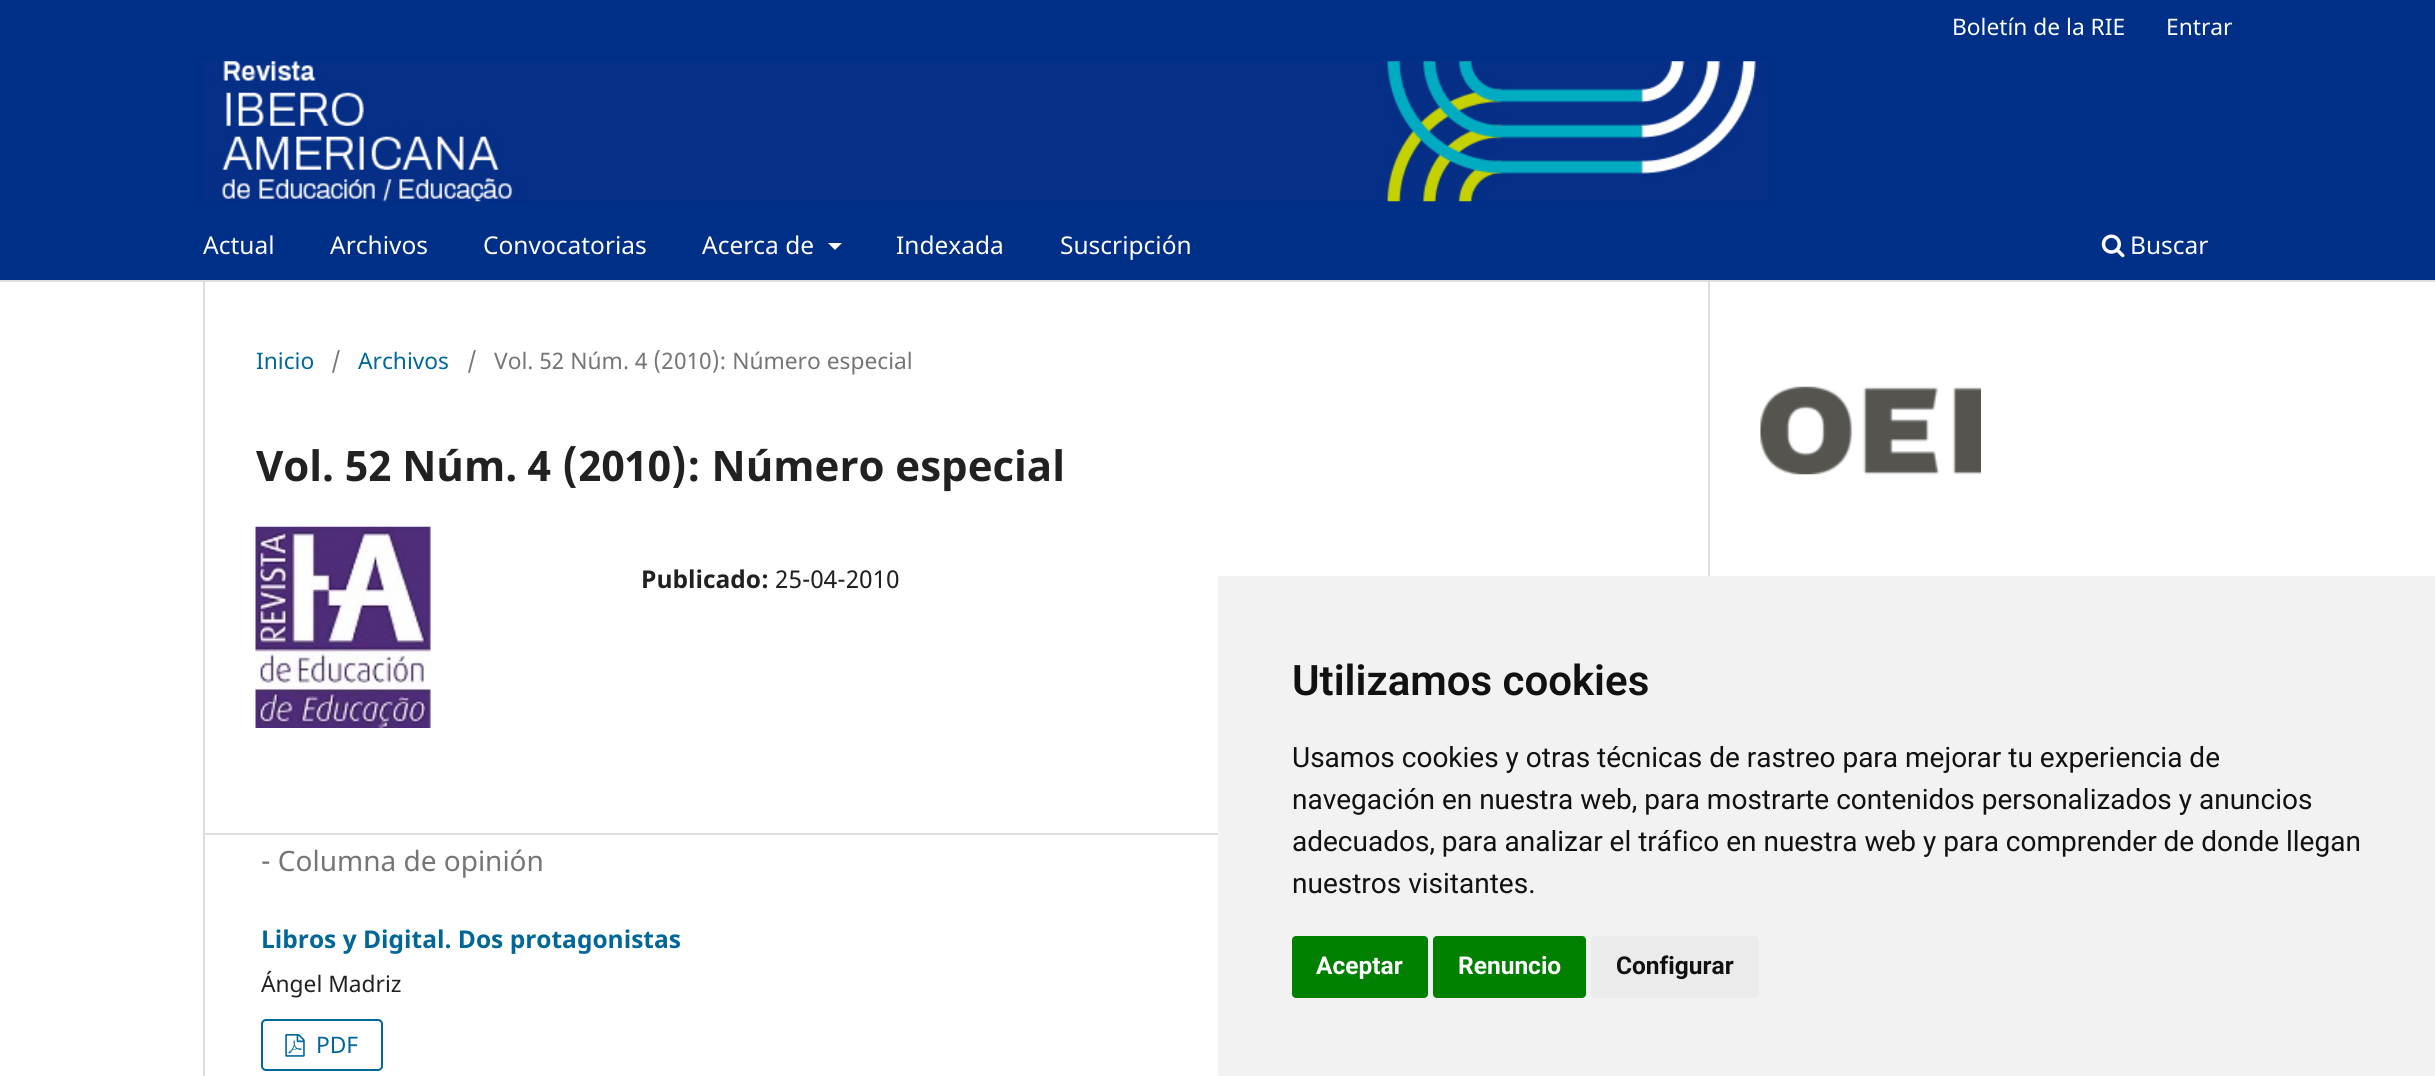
#include <cairo.h>
#include <math.h>
#include <stddef.h>


static void round_rect(cairo_t *cr, double x, double y, double w, double h, double r) {
    cairo_new_sub_path(cr);
    cairo_arc(cr, x + w - r, y + h - r, r, 0, M_PI / 2);
    cairo_arc(cr, x + r, y + h - r, r, M_PI / 2, M_PI);
    cairo_arc(cr, x + r, y + r, r, M_PI, 1.5 * M_PI);
    cairo_arc(cr, x + w - r, y + r, r, 1.5 * M_PI, 2 * M_PI);
    cairo_close_path(cr);
}

static void picture(cairo_t *cr, const char *path, double x, double y, double w, double h) {
    cairo_surface_t *image = cairo_image_surface_create_from_png(path);
    cairo_save(cr);
    cairo_set_source_surface(cr, image, x, y);
    cairo_rectangle(cr, x, y, w, h);
    cairo_fill(cr);
    cairo_restore(cr);
    cairo_surface_destroy(image);
}

int main(void) {
    cairo_surface_t *surface = cairo_image_surface_create(CAIRO_FORMAT_RGB24, 2435, 1076);
    cairo_t *cr = cairo_create(surface);
    cairo_font_options_t *options = cairo_font_options_create();
    cairo_font_options_set_hint_metrics(options, CAIRO_HINT_METRICS_OFF);
    cairo_font_options_set_hint_style(options, CAIRO_HINT_STYLE_NONE);
    cairo_set_font_options(cr, options);
    cairo_set_miter_limit(cr, 4);
    cairo_set_source_rgb(cr, 1, 1, 1);
    cairo_paint(cr);
    cairo_set_source_rgb(cr, 0, 0.184, 0.529);
    cairo_rectangle(cr, 0, 0, 2435, 280);
    cairo_fill(cr);
    cairo_set_source_rgb(cr, 0.867, 0.867, 0.867);
    cairo_rectangle(cr, 0, 280, 2435, 2);
    cairo_fill(cr);
    cairo_select_font_face(cr, "Noto Sans", CAIRO_FONT_SLANT_NORMAL, CAIRO_FONT_WEIGHT_NORMAL);
    cairo_set_font_size(cr, 22.75);
    cairo_set_source_rgb(cr, 1, 1, 1);
    cairo_move_to(cr, 1952, 35);
    cairo_show_text(cr, "Boletín de la RIE");
    cairo_move_to(cr, 2166, 35);
    cairo_show_text(cr, "Entrar");
    cairo_set_font_size(cr, 24.5);
    cairo_move_to(cr, 203, 254);
    cairo_show_text(cr, "Actual");
    cairo_move_to(cr, 330, 254);
    cairo_show_text(cr, "Archivos");
    cairo_move_to(cr, 483, 254);
    cairo_show_text(cr, "Convocatorias");
    cairo_move_to(cr, 702, 254);
    cairo_show_text(cr, "Acerca de");
    cairo_new_path(cr);
    cairo_move_to(cr, 828, 243);
    cairo_line_to(cr, 842, 243);
    cairo_line_to(cr, 835, 250);
    cairo_close_path(cr);
    cairo_fill(cr);
    cairo_move_to(cr, 896, 254);
    cairo_show_text(cr, "Indexada");
    cairo_move_to(cr, 1060, 254);
    cairo_show_text(cr, "Suscripción");
    picture(cr, "img1.png", 2101, 234, 24, 24);
    cairo_move_to(cr, 2130, 254);
    cairo_show_text(cr, "Buscar");
    picture(cr, "img2.png", 203, 61, 1566, 141);
    cairo_set_source_rgb(cr, 0.867, 0.867, 0.867);
    cairo_rectangle(cr, 203, 282, 2, 794);
    cairo_fill(cr);
    cairo_set_font_size(cr, 22.75);
    cairo_set_source_rgb(cr, 0, 0.404, 0.596);
    cairo_move_to(cr, 256, 369);
    cairo_show_text(cr, "Inicio");
    cairo_set_source_rgb(cr, 0.459, 0.459, 0.459);
    cairo_move_to(cr, 331, 369);
    cairo_show_text(cr, "/");
    cairo_set_source_rgb(cr, 0, 0.404, 0.596);
    cairo_move_to(cr, 358, 369);
    cairo_show_text(cr, "Archivos");
    cairo_set_source_rgb(cr, 0.459, 0.459, 0.459);
    cairo_move_to(cr, 467, 369);
    cairo_show_text(cr, "/");
    cairo_move_to(cr, 494, 369);
    cairo_show_text(cr, "Vol. 52 Núm. 4 (2010): Número especial");
    cairo_select_font_face(cr, "Noto Sans", CAIRO_FONT_SLANT_NORMAL, CAIRO_FONT_WEIGHT_BOLD);
    cairo_set_font_size(cr, 42);
    cairo_set_source_rgb(cr, 0.129, 0.129, 0.129);
    cairo_move_to(cr, 256, 481);
    cairo_show_text(cr, "Vol. 52 Núm. 4 (2010): Número especial");
    picture(cr, "img3.png", 255, 526, 176, 202);
    cairo_set_font_size(cr, 24.5);
    cairo_move_to(cr, 641, 588);
    cairo_show_text(cr, "Publicado:");
    cairo_select_font_face(cr, "Noto Sans", CAIRO_FONT_SLANT_NORMAL, CAIRO_FONT_WEIGHT_NORMAL);
    cairo_move_to(cr, 775, 588);
    cairo_show_text(cr, "25-04-2010");
    cairo_set_source_rgb(cr, 0.867, 0.867, 0.867);
    cairo_rectangle(cr, 203, 833, 1015, 2);
    cairo_fill(cr);
    cairo_set_font_size(cr, 28);
    cairo_set_source_rgb(cr, 0.459, 0.459, 0.459);
    cairo_move_to(cr, 261, 871);
    cairo_show_text(cr, "- Columna de opinión");
    cairo_select_font_face(cr, "Noto Sans", CAIRO_FONT_SLANT_NORMAL, CAIRO_FONT_WEIGHT_BOLD);
    cairo_set_font_size(cr, 24.5);
    cairo_set_source_rgb(cr, 0, 0.404, 0.596);
    cairo_move_to(cr, 261, 948);
    cairo_show_text(cr, "Libros y Digital. Dos protagonistas");
    cairo_select_font_face(cr, "Noto Sans", CAIRO_FONT_SLANT_NORMAL, CAIRO_FONT_WEIGHT_NORMAL);
    cairo_set_font_size(cr, 22.75);
    cairo_set_source_rgb(cr, 0.129, 0.129, 0.129);
    cairo_move_to(cr, 261, 992);
    cairo_show_text(cr, "Ángel Madriz");
    round_rect(cr, 262, 1020, 120, 50, 4);
    cairo_set_source_rgb(cr, 0, 0.404, 0.596);
    cairo_stroke(cr);
    picture(cr, "img4.png", 285, 1034, 20, 23);
    cairo_move_to(cr, 316, 1053);
    cairo_show_text(cr, "PDF");
    cairo_set_source_rgb(cr, 0.867, 0.867, 0.867);
    cairo_rectangle(cr, 1708, 282, 2, 294);
    cairo_fill(cr);
    picture(cr, "img5.png", 1760, 386, 221, 89);
    cairo_set_source_rgb(cr, 0.949, 0.949, 0.949);
    cairo_rectangle(cr, 1218, 576, 1217, 500);
    cairo_fill(cr);
    cairo_select_font_face(cr, "Roboto SemiBold", CAIRO_FONT_SLANT_NORMAL, CAIRO_FONT_WEIGHT_NORMAL);
    cairo_set_font_size(cr, 42);
    cairo_set_source_rgb(cr, 0.067, 0.067, 0.067);
    cairo_move_to(cr, 1292, 695);
    cairo_show_text(cr, "Utilizamos cookies");
    cairo_select_font_face(cr, "Roboto", CAIRO_FONT_SLANT_NORMAL, CAIRO_FONT_WEIGHT_NORMAL);
    cairo_set_font_size(cr, 28);
    cairo_move_to(cr, 1292, 767);
    cairo_show_text(cr, "Usamos cookies y otras técnicas de rastreo para mejorar tu experiencia de");
    cairo_move_to(cr, 1292, 809);
    cairo_show_text(cr, "navegación en nuestra web, para mostrarte contenidos personalizados y anuncios");
    cairo_move_to(cr, 1292, 851);
    cairo_show_text(cr, "adecuados, para analizar el tráfico en nuestra web y para comprender de donde llegan");
    cairo_move_to(cr, 1292, 893);
    cairo_show_text(cr, "nuestros visitantes.");
    cairo_set_source_rgb(cr, 0, 0.502, 0);
    round_rect(cr, 1292, 936, 136, 62, 4);
    cairo_fill(cr);
    cairo_select_font_face(cr, "Roboto", CAIRO_FONT_SLANT_NORMAL, CAIRO_FONT_WEIGHT_BOLD);
    cairo_set_font_size(cr, 24.5);
    cairo_set_source_rgb(cr, 1, 1, 1);
    cairo_move_to(cr, 1316, 974);
    cairo_show_text(cr, "Aceptar");
    cairo_set_source_rgb(cr, 0, 0.502, 0);
    round_rect(cr, 1433, 936, 153, 62, 4);
    cairo_fill(cr);
    cairo_set_source_rgb(cr, 1, 1, 1);
    cairo_move_to(cr, 1458, 974);
    cairo_show_text(cr, "Renuncio");
    cairo_set_source_rgb(cr, 0.918, 0.918, 0.918);
    round_rect(cr, 1591, 936, 168, 62, 4);
    cairo_fill(cr);
    cairo_set_source_rgb(cr, 0.067, 0.067, 0.067);
    cairo_move_to(cr, 1616, 974);
    cairo_show_text(cr, "Configurar");
    cairo_surface_write_to_png(surface, "page.png");
    cairo_font_options_destroy(options);
    cairo_destroy(cr);
    cairo_surface_destroy(surface);
    return 0;
}
